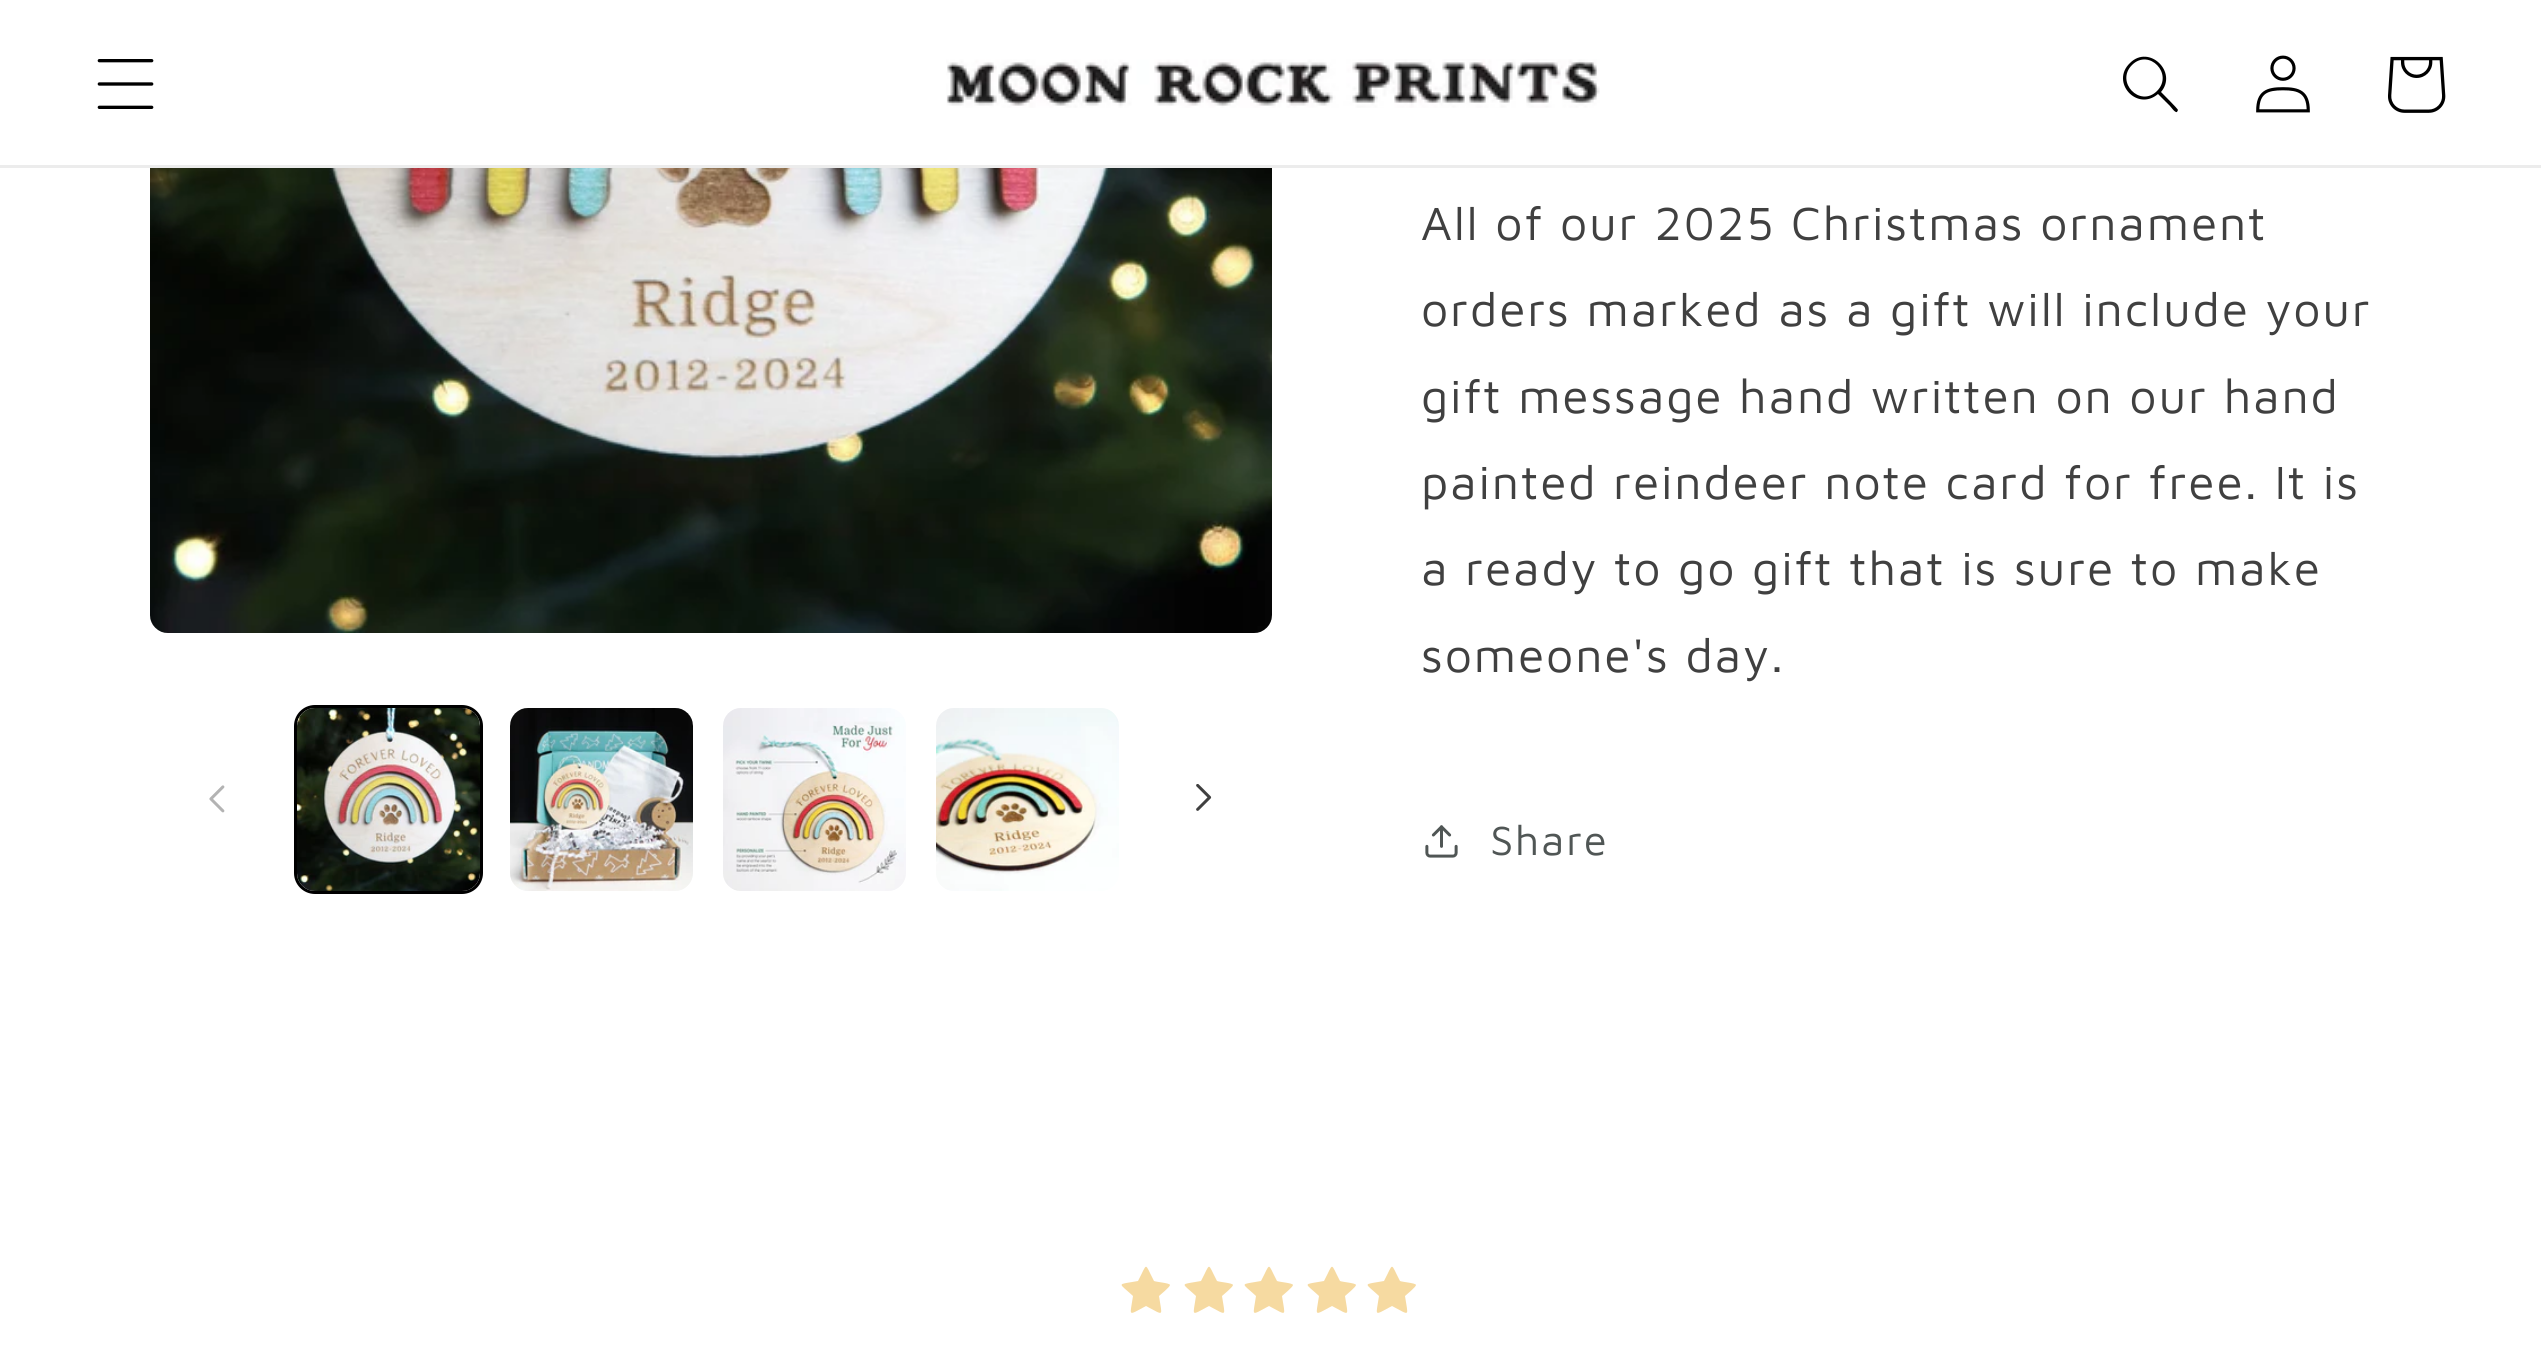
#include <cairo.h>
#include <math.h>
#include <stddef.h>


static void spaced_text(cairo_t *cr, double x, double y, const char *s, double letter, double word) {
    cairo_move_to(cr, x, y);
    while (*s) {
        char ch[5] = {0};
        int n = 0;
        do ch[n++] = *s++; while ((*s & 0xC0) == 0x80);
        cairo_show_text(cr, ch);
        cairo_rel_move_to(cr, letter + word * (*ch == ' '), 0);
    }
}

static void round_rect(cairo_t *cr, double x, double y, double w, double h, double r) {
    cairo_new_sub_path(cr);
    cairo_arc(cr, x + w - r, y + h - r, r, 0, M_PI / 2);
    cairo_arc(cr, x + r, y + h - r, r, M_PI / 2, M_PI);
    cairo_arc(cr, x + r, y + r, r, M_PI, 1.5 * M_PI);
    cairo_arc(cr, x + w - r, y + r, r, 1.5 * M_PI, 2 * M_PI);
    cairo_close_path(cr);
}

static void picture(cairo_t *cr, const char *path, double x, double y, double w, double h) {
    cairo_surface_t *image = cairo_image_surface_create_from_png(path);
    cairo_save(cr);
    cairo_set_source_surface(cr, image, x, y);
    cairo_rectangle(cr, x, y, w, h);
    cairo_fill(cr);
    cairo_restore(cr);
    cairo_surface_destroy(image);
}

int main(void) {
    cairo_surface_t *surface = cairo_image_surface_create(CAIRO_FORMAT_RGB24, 2541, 1367);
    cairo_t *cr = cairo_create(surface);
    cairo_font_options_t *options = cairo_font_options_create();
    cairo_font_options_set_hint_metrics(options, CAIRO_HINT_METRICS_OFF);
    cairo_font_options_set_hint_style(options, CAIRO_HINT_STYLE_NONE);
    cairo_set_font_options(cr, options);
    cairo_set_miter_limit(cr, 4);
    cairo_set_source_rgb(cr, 1, 1, 1);
    cairo_paint(cr);
    cairo_set_source_rgb(cr, 0.922, 0.922, 0.922);
    cairo_rectangle(cr, 0, 165, 2541, 3);
    cairo_fill(cr);
    picture(cr, "img1.png", 97, 59, 57, 50);
    picture(cr, "img2.png", 946, 59, 654, 49);
    cairo_set_source_rgb(cr, 0, 0, 0);
    cairo_set_fill_rule(cr, CAIRO_FILL_RULE_EVEN_ODD);
    cairo_new_path(cr);
    cairo_move_to(cr, 2157, 91);
    cairo_curve_to(cr, 2140, 108, 2115, 82, 2132, 65);
    cairo_curve_to(cr, 2149, 48, 2174, 74, 2157, 91);
    cairo_close_path(cr);
    cairo_move_to(cr, 2158, 94);
    cairo_curve_to(cr, 2137, 112, 2110, 82, 2130, 63);
    cairo_curve_to(cr, 2149, 44, 2178, 72, 2161, 92);
    cairo_curve_to(cr, 2163, 94, 2178, 109, 2178, 110);
    cairo_line_to(cr, 2177, 112);
    cairo_curve_to(cr, 2175, 113, 2171, 107, 2170, 106);
    cairo_close_path(cr);
    cairo_fill(cr);
    picture(cr, "img3.png", 2256, 55, 54, 58);
    picture(cr, "img4.png", 2388, 56, 58, 57);
    picture(cr, "img5.png", 150, 168, 1122, 465);
    picture(cr, "img6.png", 209, 785, 16, 28);
    round_rect(cr, 295.5, 706.5, 186, 186, 19.5);
    cairo_set_line_width(cr, 3);
    cairo_stroke(cr);
    picture(cr, "img7.png", 297, 708, 183, 183);
    picture(cr, "img8.png", 510, 708, 183, 183);
    picture(cr, "img9.png", 723, 708, 183, 183);
    picture(cr, "img10.png", 936, 708, 183, 183);
    picture(cr, "img11.png", 1196, 784, 16, 27);
    cairo_select_font_face(cr, "Maven Pro", CAIRO_FONT_SLANT_NORMAL, CAIRO_FONT_WEIGHT_NORMAL);
    cairo_set_font_size(cr, 48);
    cairo_set_source_rgb(cr, 0.251, 0.251, 0.251);
    spaced_text(cr, 1421, 240, "All of our 2025 Christmas ornament", 1.8, 0);
    spaced_text(cr, 1421, 326, "orders marked as a gift will include your", 1.8, 0);
    spaced_text(cr, 1421, 413, "gift message hand written on our hand", 1.8, 0);
    spaced_text(cr, 1421, 499, "painted reindeer note card for free. It is", 1.8, 0);
    spaced_text(cr, 1421, 585, "a ready to go gift that is sure to make", 1.8, 0);
    spaced_text(cr, 1421, 672, "someone's day.", 1.8, 0);
    picture(cr, "img12.png", 1425, 825, 33, 33);
    cairo_set_font_size(cr, 42);
    cairo_set_source_rgb(cr, 0.314, 0.337, 0.333);
    spaced_text(cr, 1490, 855, "Share", 1.8, 0);
    cairo_set_source_rgb(cr, 0.961, 0.855, 0.631);
    cairo_set_fill_rule(cr, CAIRO_FILL_RULE_WINDING);
    cairo_new_path(cr);
    cairo_move_to(cr, 1170, 1285);
    cairo_curve_to(cr, 1170, 1283, 1156, 1282, 1154, 1281);
    cairo_curve_to(cr, 1144, 1262, 1148, 1262, 1138, 1281);
    cairo_curve_to(cr, 1116, 1285, 1118, 1282, 1133, 1296);
    cairo_curve_to(cr, 1130, 1317, 1127, 1316, 1146, 1306);
    cairo_curve_to(cr, 1165, 1316, 1162, 1317, 1159, 1296);
    cairo_curve_to(cr, 1160, 1295, 1170, 1287, 1170, 1285);
    cairo_close_path(cr);
    cairo_fill(cr);
    cairo_new_path(cr);
    cairo_move_to(cr, 1233, 1285);
    cairo_curve_to(cr, 1233, 1283, 1219, 1282, 1217, 1281);
    cairo_curve_to(cr, 1207, 1262, 1211, 1262, 1201, 1281);
    cairo_curve_to(cr, 1179, 1285, 1181, 1282, 1196, 1296);
    cairo_curve_to(cr, 1193, 1317, 1190, 1316, 1209, 1306);
    cairo_curve_to(cr, 1228, 1316, 1225, 1317, 1222, 1296);
    cairo_curve_to(cr, 1223, 1295, 1233, 1287, 1233, 1285);
    cairo_close_path(cr);
    cairo_fill(cr);
    cairo_new_path(cr);
    cairo_move_to(cr, 1293, 1285);
    cairo_curve_to(cr, 1293, 1283, 1279, 1282, 1277, 1281);
    cairo_curve_to(cr, 1267, 1262, 1271, 1262, 1261, 1281);
    cairo_curve_to(cr, 1239, 1285, 1241, 1282, 1256, 1296);
    cairo_curve_to(cr, 1253, 1317, 1250, 1316, 1269, 1306);
    cairo_curve_to(cr, 1288, 1316, 1285, 1317, 1282, 1296);
    cairo_curve_to(cr, 1283, 1295, 1293, 1287, 1293, 1285);
    cairo_close_path(cr);
    cairo_fill(cr);
    cairo_new_path(cr);
    cairo_move_to(cr, 1356, 1285);
    cairo_curve_to(cr, 1356, 1283, 1342, 1282, 1340, 1281);
    cairo_curve_to(cr, 1330, 1262, 1334, 1262, 1324, 1281);
    cairo_curve_to(cr, 1302, 1285, 1304, 1282, 1319, 1296);
    cairo_curve_to(cr, 1316, 1317, 1313, 1316, 1332, 1306);
    cairo_curve_to(cr, 1351, 1316, 1348, 1317, 1345, 1296);
    cairo_curve_to(cr, 1346, 1295, 1356, 1287, 1356, 1285);
    cairo_close_path(cr);
    cairo_fill(cr);
    cairo_new_path(cr);
    cairo_move_to(cr, 1416, 1285);
    cairo_curve_to(cr, 1416, 1283, 1402, 1282, 1400, 1281);
    cairo_curve_to(cr, 1390, 1262, 1394, 1262, 1384, 1281);
    cairo_curve_to(cr, 1362, 1285, 1364, 1282, 1379, 1296);
    cairo_curve_to(cr, 1376, 1317, 1373, 1316, 1392, 1306);
    cairo_curve_to(cr, 1411, 1316, 1408, 1317, 1405, 1296);
    cairo_curve_to(cr, 1406, 1295, 1416, 1287, 1416, 1285);
    cairo_close_path(cr);
    cairo_fill(cr);
    cairo_surface_write_to_png(surface, "page.png");
    cairo_font_options_destroy(options);
    cairo_destroy(cr);
    cairo_surface_destroy(surface);
    return 0;
}
